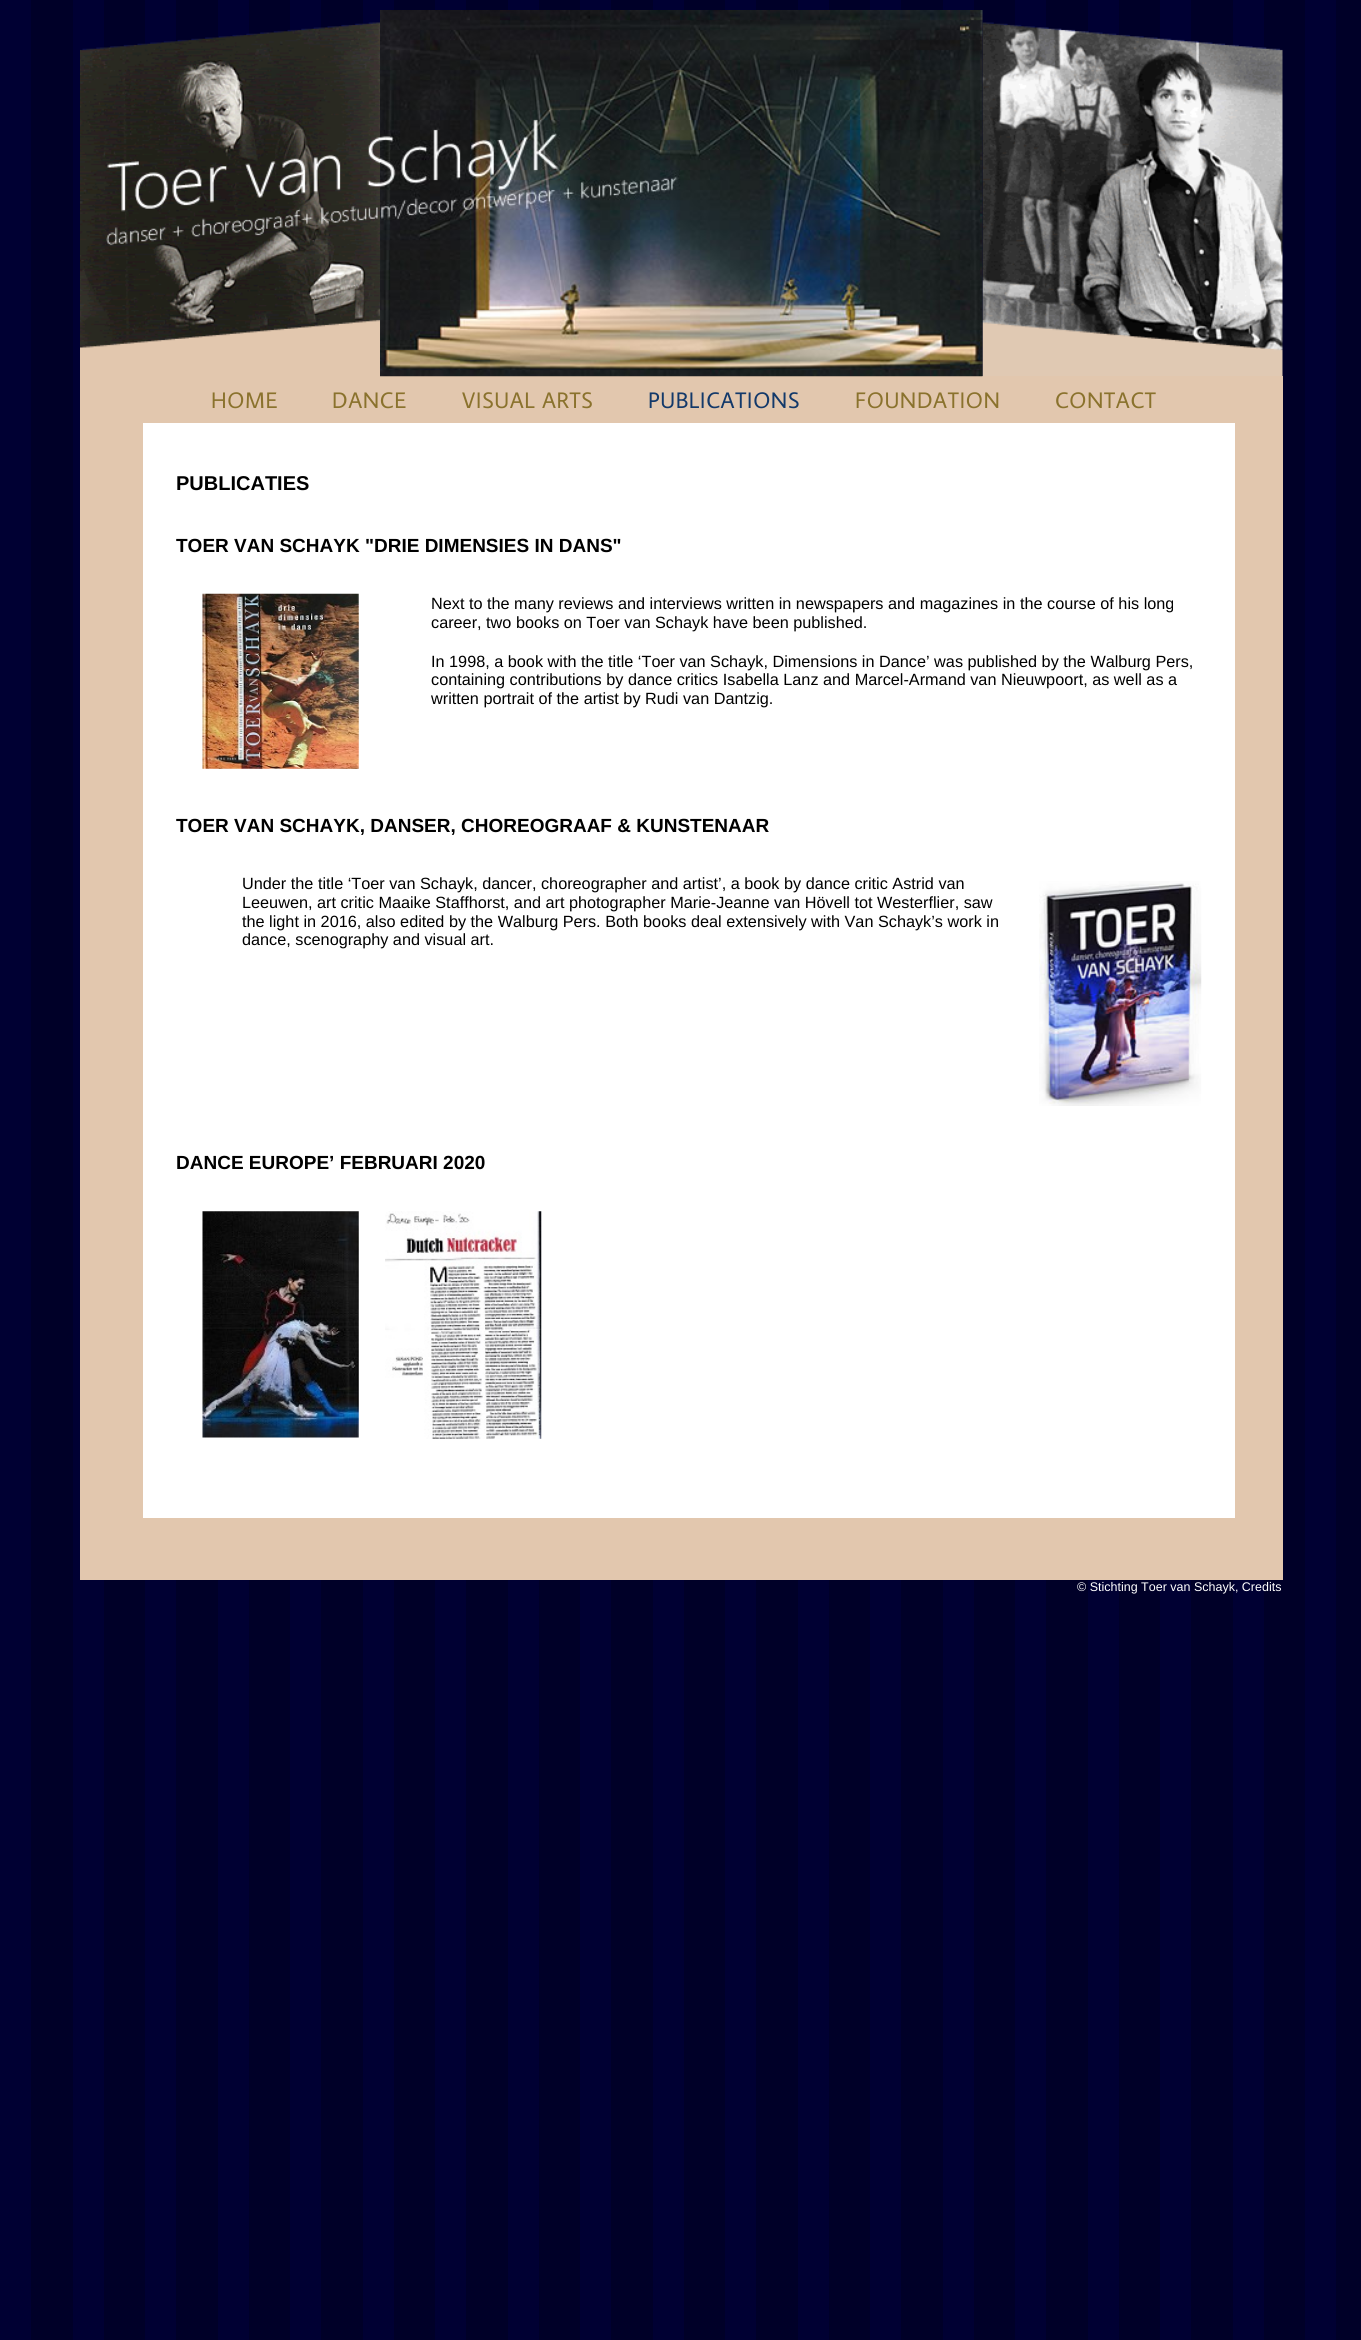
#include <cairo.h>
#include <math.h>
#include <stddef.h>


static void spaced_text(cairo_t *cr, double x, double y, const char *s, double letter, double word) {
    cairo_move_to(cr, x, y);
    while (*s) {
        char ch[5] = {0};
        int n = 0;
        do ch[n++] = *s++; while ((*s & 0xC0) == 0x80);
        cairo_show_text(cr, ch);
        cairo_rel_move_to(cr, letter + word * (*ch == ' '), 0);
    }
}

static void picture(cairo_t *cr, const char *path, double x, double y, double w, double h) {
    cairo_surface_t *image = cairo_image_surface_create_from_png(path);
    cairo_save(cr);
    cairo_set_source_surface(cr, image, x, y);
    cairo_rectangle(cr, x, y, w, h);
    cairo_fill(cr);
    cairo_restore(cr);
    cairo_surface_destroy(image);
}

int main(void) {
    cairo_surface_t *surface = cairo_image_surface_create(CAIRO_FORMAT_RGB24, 1361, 2340);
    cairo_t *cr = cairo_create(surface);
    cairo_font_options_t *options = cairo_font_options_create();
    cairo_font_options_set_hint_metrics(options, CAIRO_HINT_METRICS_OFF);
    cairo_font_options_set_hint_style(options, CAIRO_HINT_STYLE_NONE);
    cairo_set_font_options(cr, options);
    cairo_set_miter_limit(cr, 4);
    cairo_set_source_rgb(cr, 1, 1, 1);
    cairo_paint(cr);
    picture(cr, "img1.png", 0, 0, 1361, 2340);
    picture(cr, "img2.png", 80, 22, 300, 354);
    picture(cr, "img4.png", 982, 22, 301, 354);
    cairo_set_source_rgb(cr, 0.886, 0.78, 0.682);
    cairo_rectangle(cr, 80, 376, 1203, 1204);
    cairo_fill(cr);
    picture(cr, "img3.png", 380, 10, 603, 367);
    cairo_select_font_face(cr, "Average Sans", CAIRO_FONT_SLANT_NORMAL, CAIRO_FONT_WEIGHT_NORMAL);
    cairo_set_font_size(cr, 22.5);
    cairo_set_source_rgb(cr, 0.541, 0.447, 0.176);
    spaced_text(cr, 211, 408, "HOME", 0.6, 0);
    spaced_text(cr, 332, 408, "DANCE", 0.6, 0);
    spaced_text(cr, 462, 408, "VISUAL ARTS", 0.6, 0);
    cairo_set_source_rgb(cr, 0.075, 0.224, 0.416);
    spaced_text(cr, 648, 408, "PUBLICATIONS", 0.6, 0);
    cairo_set_source_rgb(cr, 0.541, 0.447, 0.176);
    spaced_text(cr, 855, 408, "FOUNDATION", 0.6, 0);
    spaced_text(cr, 1055, 408, "CONTACT", 0.6, 0);
    cairo_set_source_rgb(cr, 1, 1, 1);
    cairo_rectangle(cr, 143, 423, 1092, 1095);
    cairo_fill(cr);
    cairo_select_font_face(cr, "Liberation Sans", CAIRO_FONT_SLANT_NORMAL, CAIRO_FONT_WEIGHT_BOLD);
    cairo_set_font_size(cr, 20);
    cairo_set_source_rgb(cr, 0, 0, 0);
    cairo_move_to(cr, 176, 490);
    cairo_show_text(cr, "PUBLICATIES");
    cairo_set_font_size(cr, 19);
    cairo_move_to(cr, 176, 552);
    cairo_show_text(cr, "TOER VAN SCHAYK \"DRIE DIMENSIES IN DANS\"");
    picture(cr, "img5.png", 202, 593, 157, 176);
    cairo_select_font_face(cr, "Liberation Sans", CAIRO_FONT_SLANT_NORMAL, CAIRO_FONT_WEIGHT_NORMAL);
    cairo_set_font_size(cr, 16.25);
    cairo_move_to(cr, 431, 609);
    cairo_show_text(cr, "Next to the many reviews and interviews written in newspapers and magazines in the course of his long");
    cairo_move_to(cr, 431, 628);
    cairo_show_text(cr, "career, two books on Toer van Schayk have been published.");
    cairo_move_to(cr, 431, 667);
    cairo_show_text(cr, "In 1998, a book with the title ‘Toer van Schayk, Dimensions in Dance’ was published by the Walburg Pers,");
    cairo_move_to(cr, 431, 685);
    cairo_show_text(cr, "containing contributions by dance critics Isabella Lanz and Marcel-Armand van Nieuwpoort, as well as a");
    cairo_move_to(cr, 431, 704);
    cairo_show_text(cr, "written portrait of the artist by Rudi van Dantzig.");
    cairo_select_font_face(cr, "Liberation Sans", CAIRO_FONT_SLANT_NORMAL, CAIRO_FONT_WEIGHT_BOLD);
    cairo_set_font_size(cr, 19);
    cairo_move_to(cr, 176, 832);
    cairo_show_text(cr, "TOER VAN SCHAYK, DANSER, CHOREOGRAAF & KUNSTENAAR");
    cairo_select_font_face(cr, "Liberation Sans", CAIRO_FONT_SLANT_NORMAL, CAIRO_FONT_WEIGHT_NORMAL);
    cairo_set_font_size(cr, 16.25);
    cairo_move_to(cr, 242, 889);
    cairo_show_text(cr, "Under the title ‘Toer van Schayk, dancer, choreographer and artist’, a book by dance critic Astrid van");
    cairo_move_to(cr, 242, 908);
    cairo_show_text(cr, "Leeuwen, art critic Maaike Staffhorst, and art photographer Marie-Jeanne van Hövell tot Westerflier, saw");
    cairo_move_to(cr, 242, 927);
    cairo_show_text(cr, "the light in 2016, also edited by the Walburg Pers. Both books deal extensively with Van Schayk’s work in");
    cairo_move_to(cr, 242, 945);
    cairo_show_text(cr, "dance, scenography and visual art.");
    picture(cr, "img6.png", 1039, 881, 163, 225);
    cairo_select_font_face(cr, "Liberation Sans", CAIRO_FONT_SLANT_NORMAL, CAIRO_FONT_WEIGHT_BOLD);
    cairo_set_font_size(cr, 19);
    cairo_move_to(cr, 176, 1169);
    cairo_show_text(cr, "DANCE EUROPE’ FEBRUARI 2020");
    picture(cr, "img7.png", 202, 1211, 157, 227);
    picture(cr, "img8.png", 385, 1211, 157, 228);
    cairo_select_font_face(cr, "Liberation Sans", CAIRO_FONT_SLANT_NORMAL, CAIRO_FONT_WEIGHT_NORMAL);
    cairo_set_font_size(cr, 12.5);
    cairo_set_source_rgb(cr, 1, 1, 1);
    cairo_move_to(cr, 1077, 1591);
    cairo_show_text(cr, "© Stichting Toer van Schayk, Credits");
    cairo_surface_write_to_png(surface, "page.png");
    cairo_font_options_destroy(options);
    cairo_destroy(cr);
    cairo_surface_destroy(surface);
    return 0;
}
